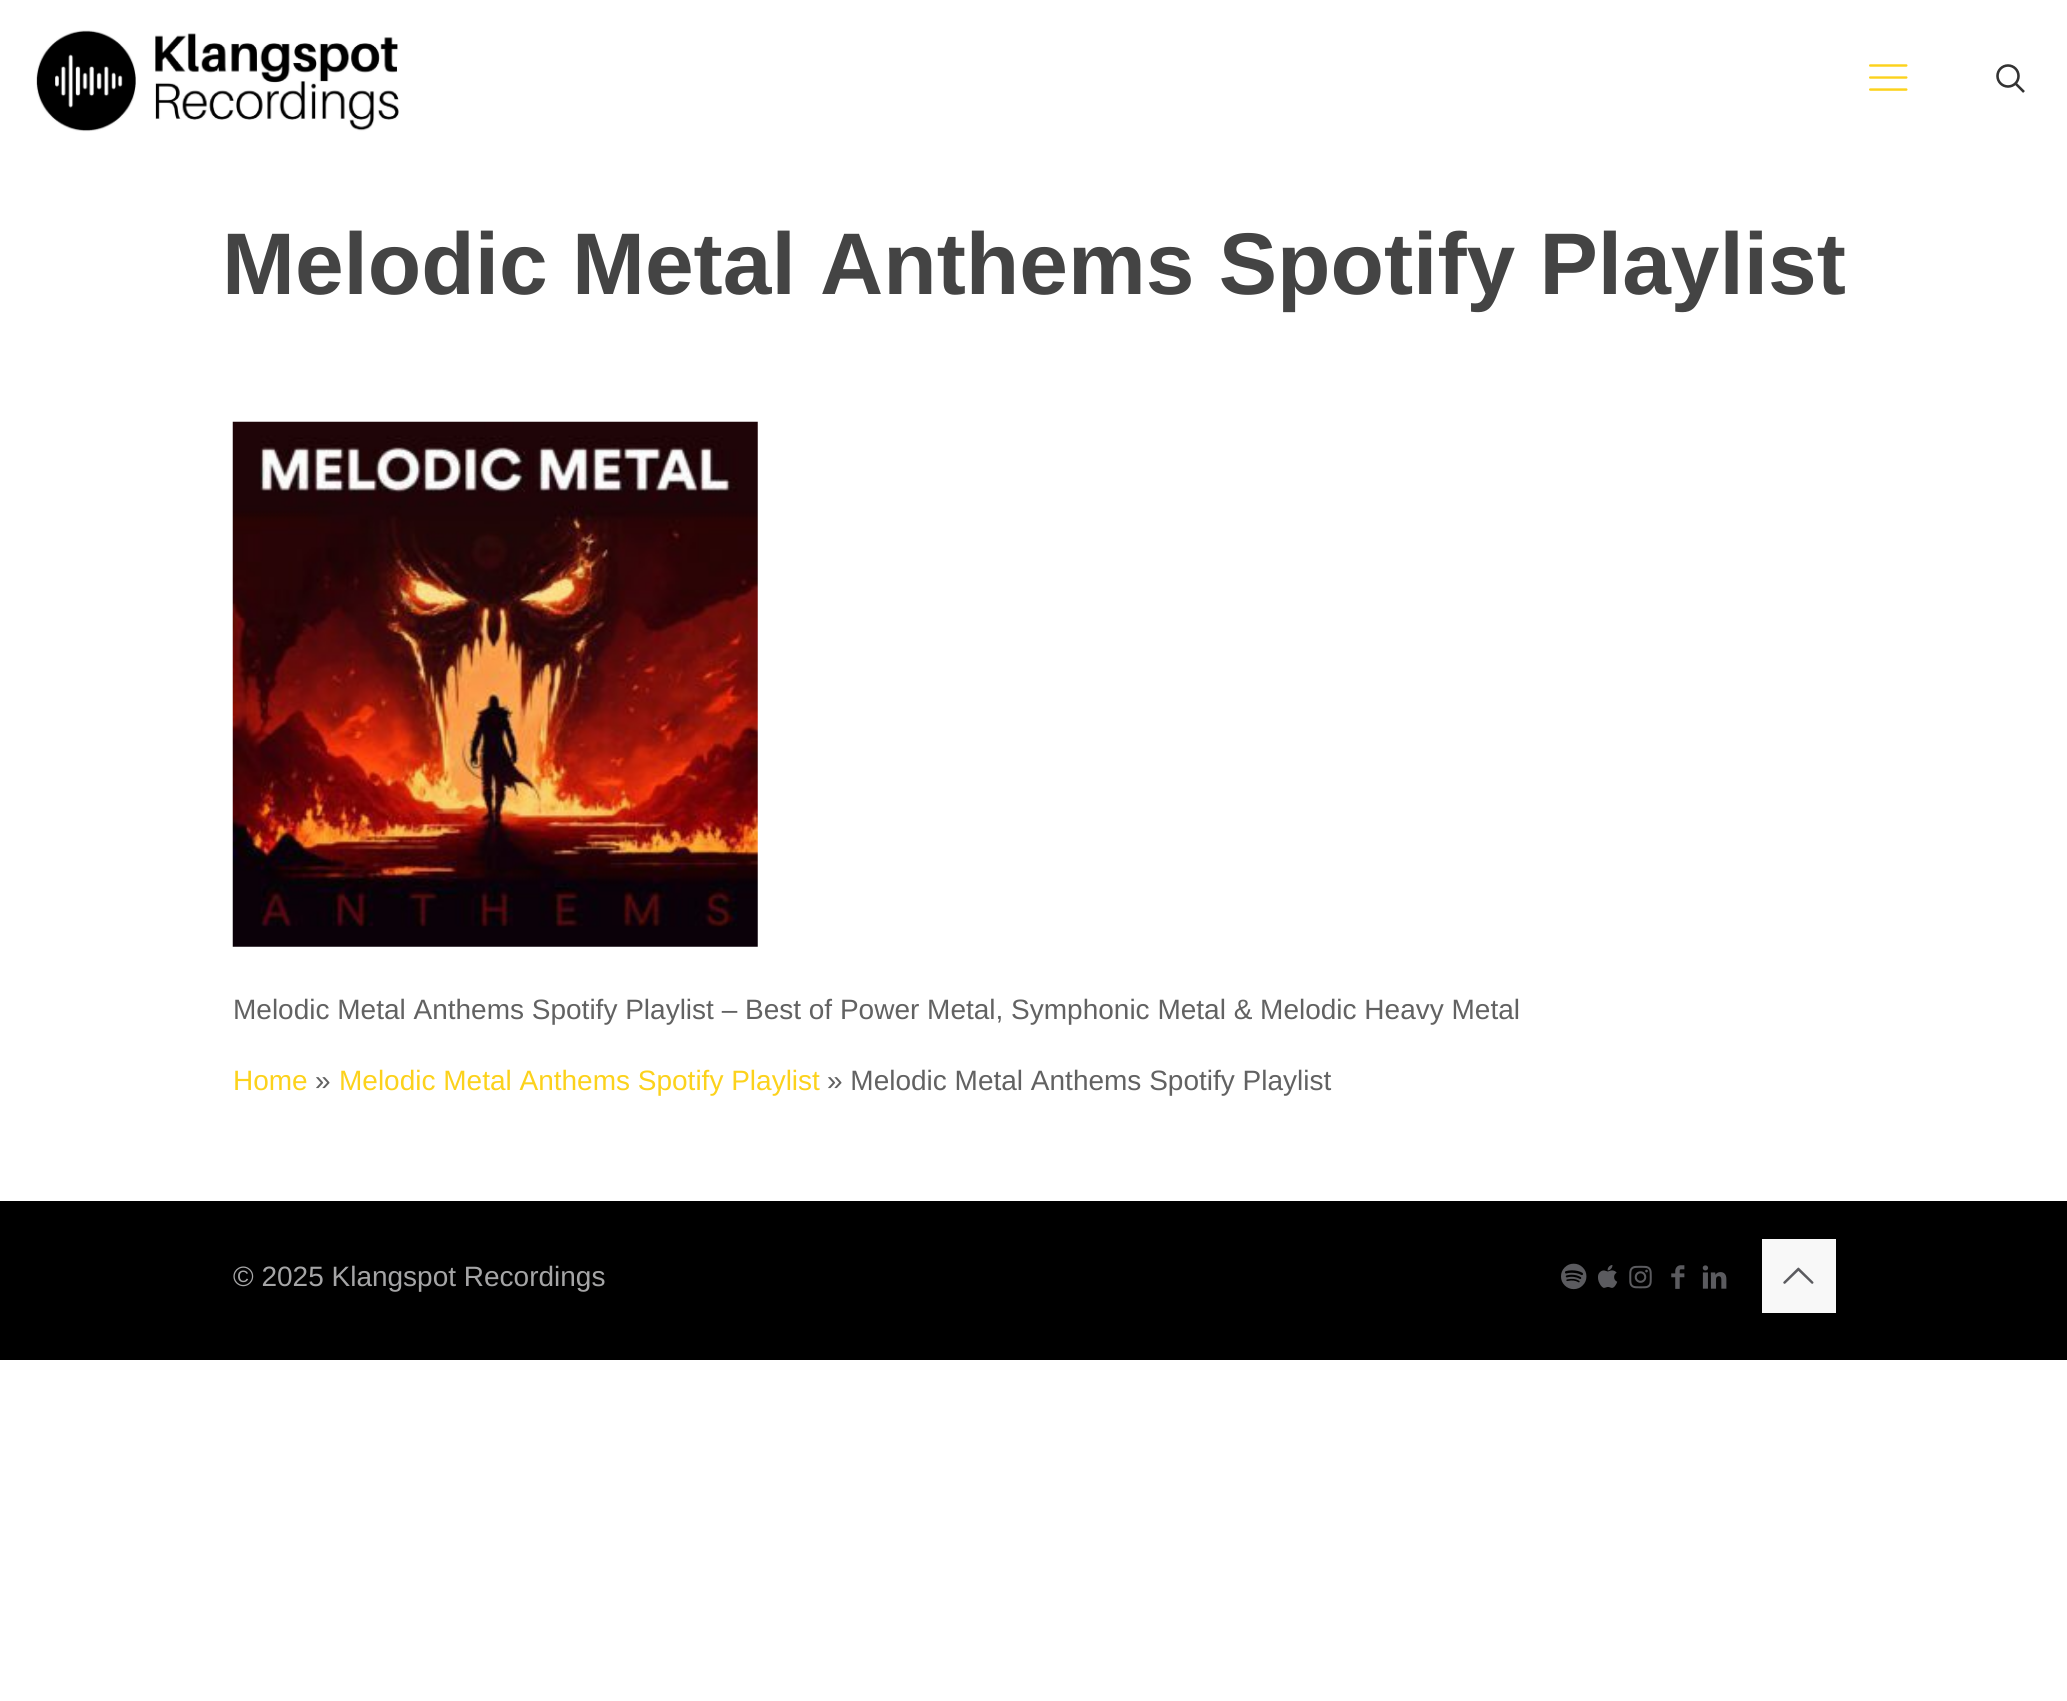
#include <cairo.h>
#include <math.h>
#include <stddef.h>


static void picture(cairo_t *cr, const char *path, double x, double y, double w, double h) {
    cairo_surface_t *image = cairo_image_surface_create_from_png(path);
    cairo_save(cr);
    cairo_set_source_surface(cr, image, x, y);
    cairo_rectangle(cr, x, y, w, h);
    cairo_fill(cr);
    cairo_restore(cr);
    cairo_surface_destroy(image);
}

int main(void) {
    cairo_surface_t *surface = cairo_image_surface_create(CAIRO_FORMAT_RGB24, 2067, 1701);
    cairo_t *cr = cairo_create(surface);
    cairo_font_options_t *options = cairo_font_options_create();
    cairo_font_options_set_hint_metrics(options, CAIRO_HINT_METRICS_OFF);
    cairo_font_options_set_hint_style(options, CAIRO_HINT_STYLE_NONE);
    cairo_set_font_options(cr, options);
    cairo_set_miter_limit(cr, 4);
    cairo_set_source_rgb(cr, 1, 1, 1);
    cairo_paint(cr);
    picture(cr, "img1.png", 36, 30, 363, 102);
    picture(cr, "img2.png", 1869, 64, 39, 27);
    cairo_arc(cr, 2008, 76, 10.5, 0, 2 * M_PI);
    cairo_set_source_rgb(cr, 0.2, 0.2, 0.2);
    cairo_set_line_width(cr, 2.6);
    cairo_stroke(cr);
    cairo_new_path(cr);
    cairo_move_to(cr, 2015.5, 83.5);
    cairo_line_to(cr, 2024, 92);
    cairo_stroke(cr);
    cairo_select_font_face(cr, "Liberation Sans", CAIRO_FONT_SLANT_NORMAL, CAIRO_FONT_WEIGHT_BOLD);
    cairo_set_font_size(cr, 87.5);
    cairo_set_source_rgb(cr, 0.267, 0.267, 0.267);
    cairo_move_to(cr, 222, 294);
    cairo_show_text(cr, "Melodic Metal Anthems Spotify Playlist");
    picture(cr, "img3.png", 232, 421, 526, 526);
    cairo_select_font_face(cr, "Liberation Sans", CAIRO_FONT_SLANT_NORMAL, CAIRO_FONT_WEIGHT_NORMAL);
    cairo_set_font_size(cr, 28);
    cairo_set_source_rgb(cr, 0.384, 0.384, 0.384);
    cairo_move_to(cr, 233, 1019);
    cairo_show_text(cr, "Melodic Metal Anthems Spotify Playlist – Best of Power Metal, Symphonic Metal & Melodic Heavy Metal");
    cairo_set_source_rgb(cr, 0.988, 0.824, 0.11);
    cairo_move_to(cr, 233, 1090);
    cairo_show_text(cr, "Home");
    cairo_set_source_rgb(cr, 0.384, 0.384, 0.384);
    cairo_move_to(cr, 315, 1090);
    cairo_show_text(cr, "»");
    cairo_set_source_rgb(cr, 0.988, 0.824, 0.11);
    cairo_move_to(cr, 339, 1090);
    cairo_show_text(cr, "Melodic Metal Anthems Spotify Playlist");
    cairo_set_source_rgb(cr, 0.384, 0.384, 0.384);
    cairo_move_to(cr, 827, 1090);
    cairo_show_text(cr, "» Melodic Metal Anthems Spotify Playlist");
    cairo_set_source_rgb(cr, 0, 0, 0);
    cairo_rectangle(cr, 0, 1201, 2067, 159);
    cairo_fill(cr);
    cairo_set_source_rgb(cr, 0.647, 0.647, 0.651);
    cairo_move_to(cr, 233, 1286);
    cairo_show_text(cr, "© 2025 Klangspot Recordings");
    picture(cr, "img4.png", 1561, 1263, 26, 27);
    picture(cr, "img5.png", 1598, 1265, 20, 23);
    picture(cr, "img6.png", 1629, 1265, 23, 24);
    picture(cr, "img7.png", 1671, 1265, 14, 24);
    picture(cr, "img8.png", 1702, 1265, 25, 24);
    cairo_set_source_rgb(cr, 0.969, 0.969, 0.969);
    cairo_rectangle(cr, 1762, 1239, 74, 74);
    cairo_fill(cr);
    picture(cr, "img9.png", 1783, 1267, 31, 17);
    cairo_surface_write_to_png(surface, "page.png");
    cairo_font_options_destroy(options);
    cairo_destroy(cr);
    cairo_surface_destroy(surface);
    return 0;
}
